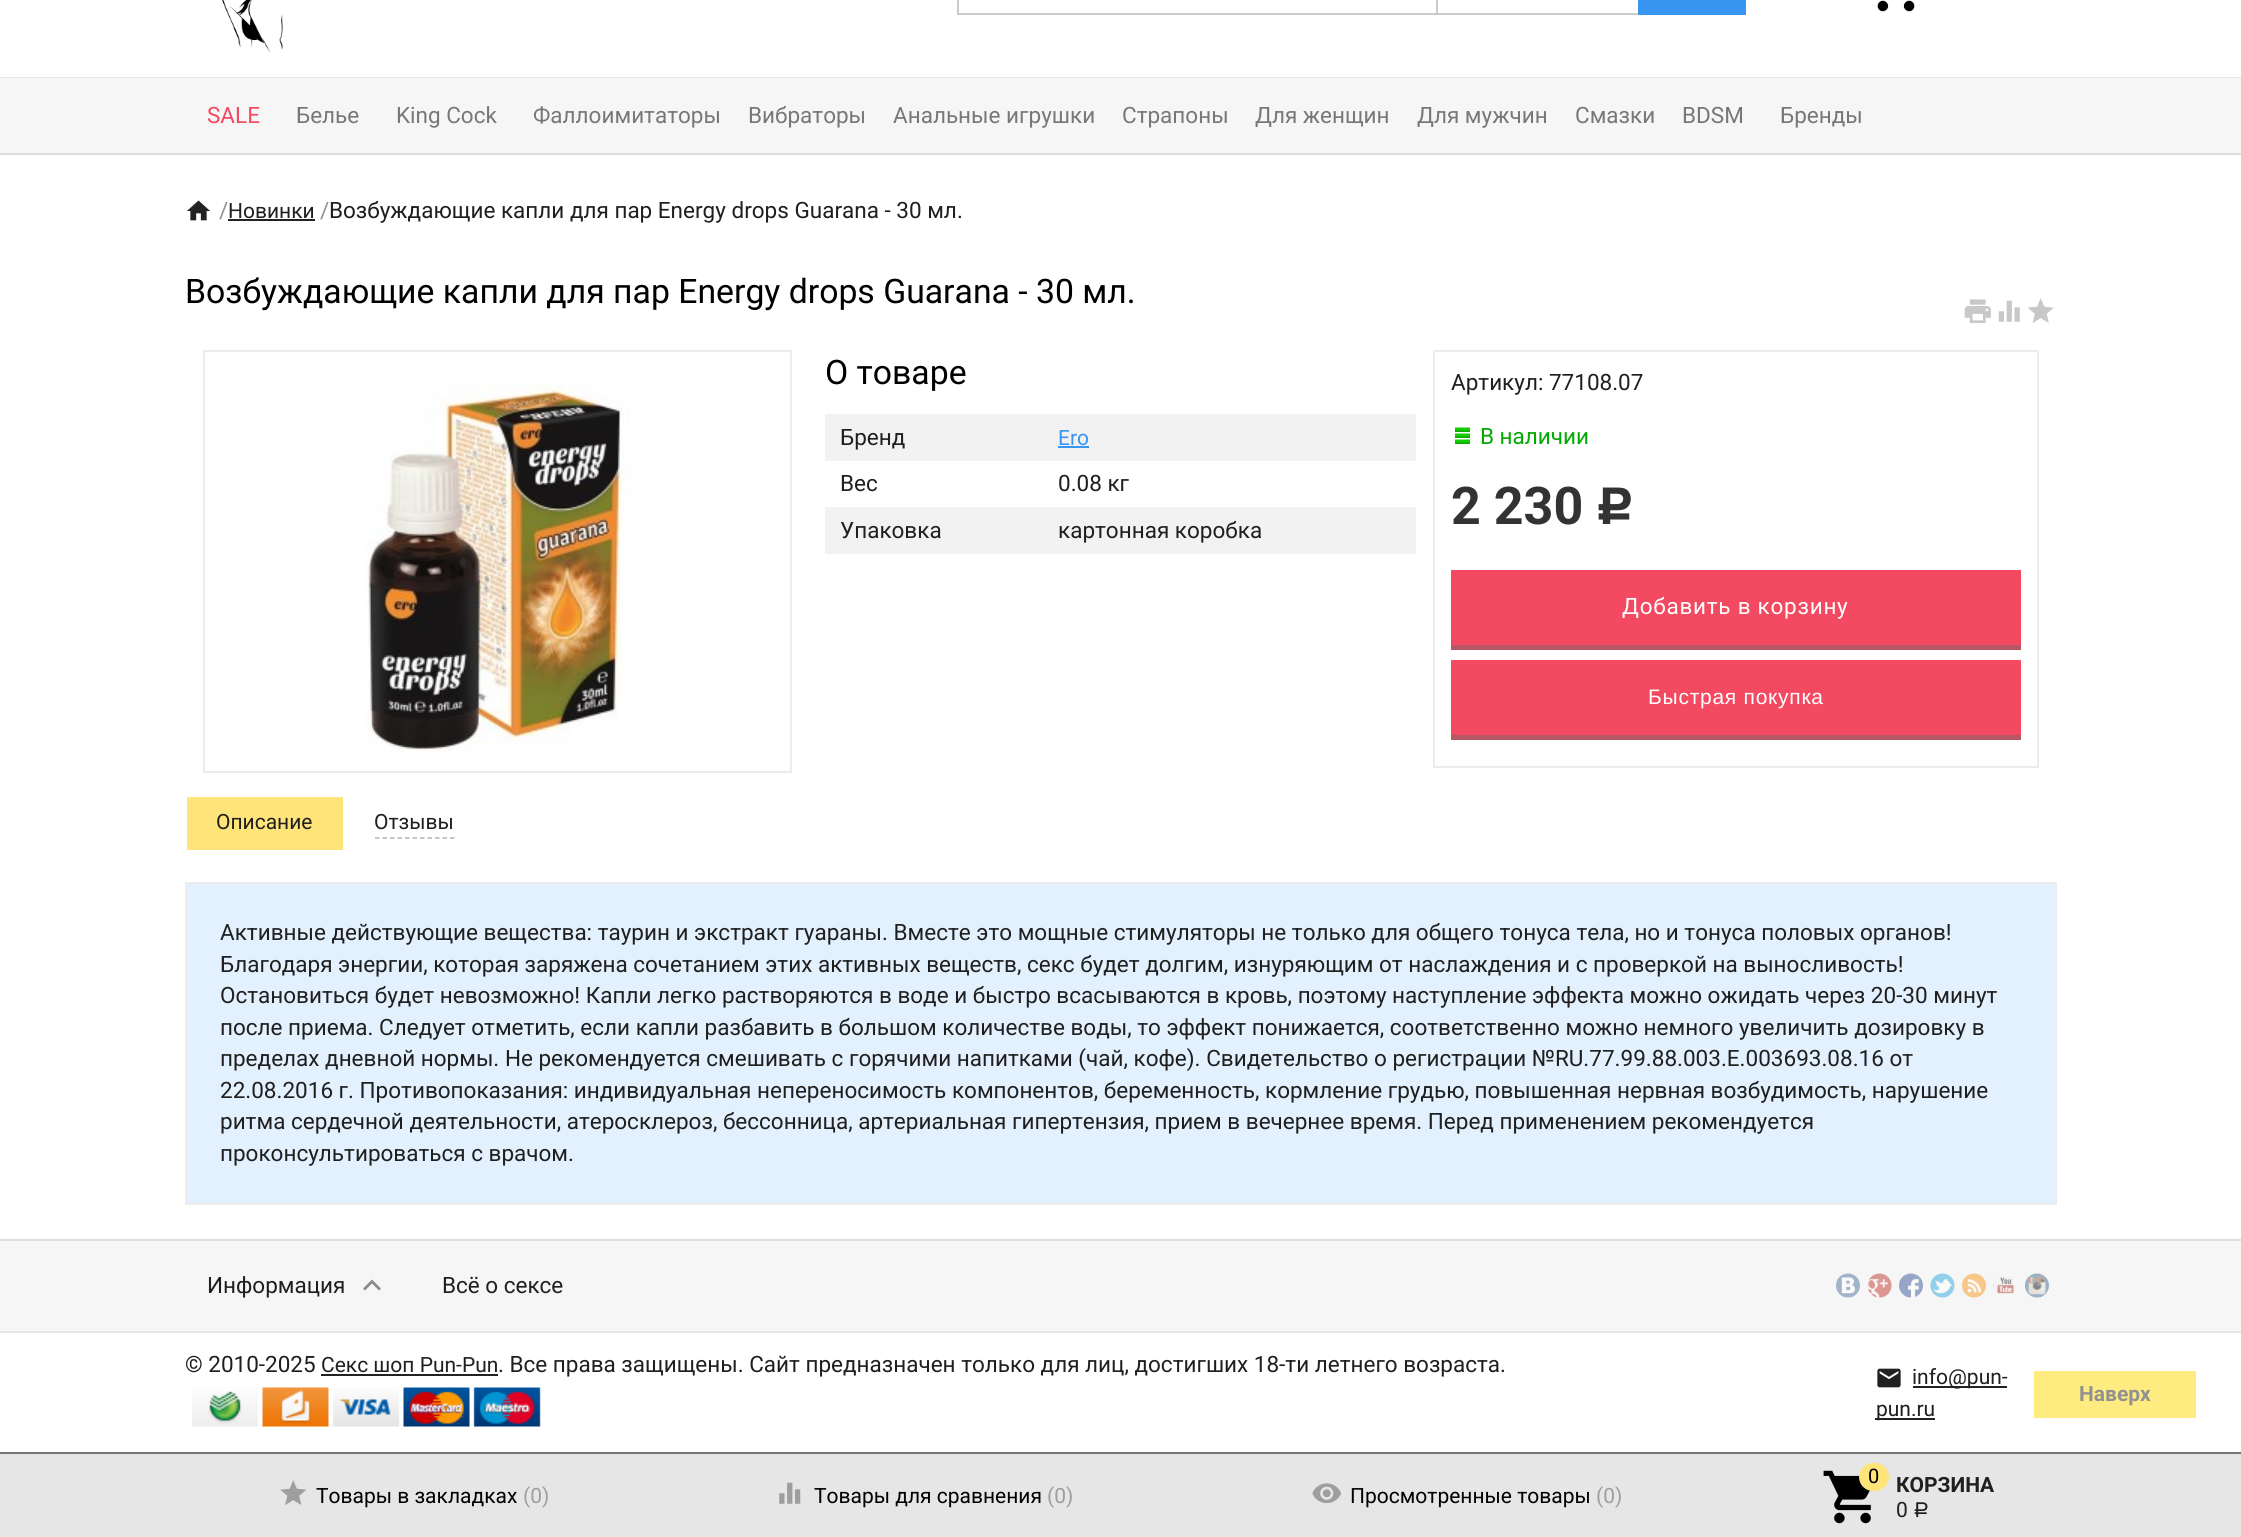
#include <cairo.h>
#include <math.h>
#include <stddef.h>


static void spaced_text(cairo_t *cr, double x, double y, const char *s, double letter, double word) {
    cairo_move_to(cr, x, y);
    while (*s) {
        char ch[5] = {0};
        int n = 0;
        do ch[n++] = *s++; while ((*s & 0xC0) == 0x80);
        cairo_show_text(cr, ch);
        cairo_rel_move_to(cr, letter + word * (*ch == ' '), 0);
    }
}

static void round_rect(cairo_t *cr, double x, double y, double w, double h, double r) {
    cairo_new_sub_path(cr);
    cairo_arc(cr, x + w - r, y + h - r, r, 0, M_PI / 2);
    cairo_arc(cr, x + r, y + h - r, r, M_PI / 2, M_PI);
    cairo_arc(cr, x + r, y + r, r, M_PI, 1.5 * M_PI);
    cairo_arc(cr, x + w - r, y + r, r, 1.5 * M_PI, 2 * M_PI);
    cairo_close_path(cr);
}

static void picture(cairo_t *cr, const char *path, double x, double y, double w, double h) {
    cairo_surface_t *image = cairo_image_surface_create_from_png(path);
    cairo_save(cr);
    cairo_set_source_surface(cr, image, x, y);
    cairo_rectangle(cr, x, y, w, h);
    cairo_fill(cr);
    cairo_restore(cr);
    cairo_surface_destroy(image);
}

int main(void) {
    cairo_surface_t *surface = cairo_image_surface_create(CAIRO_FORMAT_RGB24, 2241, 1537);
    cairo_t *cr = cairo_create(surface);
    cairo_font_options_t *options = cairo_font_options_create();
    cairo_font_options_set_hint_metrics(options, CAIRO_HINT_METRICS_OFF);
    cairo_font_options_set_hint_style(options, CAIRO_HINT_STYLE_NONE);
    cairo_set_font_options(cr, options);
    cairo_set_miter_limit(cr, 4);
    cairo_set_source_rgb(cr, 1, 1, 1);
    cairo_paint(cr);
    cairo_set_source_rgb(cr, 0.906, 0.906, 0.906);
    cairo_rectangle(cr, 0, 77, 2241, 1);
    cairo_fill(cr);
    picture(cr, "img1.png", 222, 0, 61, 53);
    cairo_rectangle(cr, 958, -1, 787, 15);
    cairo_set_source_rgb(cr, 0.796, 0.796, 0.796);
    cairo_stroke(cr);
    cairo_rectangle(cr, 1436, 0, 2, 14);
    cairo_fill(cr);
    cairo_set_source_rgb(cr, 0.22, 0.588, 0.941);
    cairo_rectangle(cr, 1638, 0, 108, 15);
    cairo_fill(cr);
    picture(cr, "img2.png", 1877, 0, 38, 12);
    cairo_set_source_rgb(cr, 0.961, 0.961, 0.961);
    cairo_rectangle(cr, 0, 78, 2241, 75);
    cairo_fill(cr);
    cairo_set_source_rgb(cr, 0.871, 0.871, 0.871);
    cairo_rectangle(cr, 0, 153, 2241, 2);
    cairo_fill(cr);
    cairo_select_font_face(cr, "Roboto", CAIRO_FONT_SLANT_NORMAL, CAIRO_FONT_WEIGHT_NORMAL);
    cairo_set_font_size(cr, 22.5);
    cairo_set_source_rgb(cr, 0.953, 0.286, 0.38);
    cairo_move_to(cr, 207, 123);
    cairo_show_text(cr, "SALE");
    cairo_set_source_rgb(cr, 0.467, 0.467, 0.467);
    cairo_move_to(cr, 296, 123);
    cairo_show_text(cr, "Белье");
    cairo_move_to(cr, 396, 123);
    cairo_show_text(cr, "King Cock");
    cairo_move_to(cr, 533, 123);
    cairo_show_text(cr, "Фаллоимитаторы");
    cairo_move_to(cr, 748, 123);
    cairo_show_text(cr, "Вибраторы");
    cairo_move_to(cr, 893, 123);
    cairo_show_text(cr, "Анальные игрушки");
    cairo_move_to(cr, 1122, 123);
    cairo_show_text(cr, "Страпоны");
    cairo_move_to(cr, 1255, 123);
    cairo_show_text(cr, "Для женщин");
    cairo_move_to(cr, 1417, 123);
    cairo_show_text(cr, "Для мужчин");
    cairo_move_to(cr, 1575, 123);
    cairo_show_text(cr, "Смазки");
    cairo_move_to(cr, 1682, 123);
    cairo_show_text(cr, "BDSM");
    cairo_move_to(cr, 1780, 123);
    cairo_show_text(cr, "Бренды");
    picture(cr, "img3.png", 187, 200, 23, 21);
    cairo_set_source_rgb(cr, 0.569, 0.569, 0.569);
    cairo_move_to(cr, 219, 218);
    cairo_show_text(cr, "/");
    cairo_set_font_size(cr, 21);
    cairo_set_source_rgb(cr, 0.122, 0.122, 0.122);
    cairo_move_to(cr, 228, 218);
    cairo_show_text(cr, "Новинки");
    cairo_set_source_rgb(cr, 0.133, 0.133, 0.133);
    cairo_rectangle(cr, 228, 219, 87, 2);
    cairo_fill(cr);
    cairo_set_font_size(cr, 22.5);
    cairo_set_source_rgb(cr, 0.569, 0.569, 0.569);
    cairo_move_to(cr, 320, 218);
    cairo_show_text(cr, "/");
    cairo_set_source_rgb(cr, 0.122, 0.122, 0.122);
    cairo_move_to(cr, 329, 218);
    cairo_show_text(cr, "Возбуждающие капли для пар Energy drops Guarana - 30 мл.");
    cairo_set_font_size(cr, 33.75);
    cairo_set_source_rgb(cr, 0, 0, 0);
    cairo_move_to(cr, 185, 303);
    cairo_show_text(cr, "Возбуждающие капли для пар Energy drops Guarana - 30 мл.");
    picture(cr, "img4.png", 1964, 299, 27, 24);
    picture(cr, "img5.png", 1998, 300, 22, 22);
    picture(cr, "img6.png", 2028, 298, 26, 25);
    cairo_rectangle(cr, 204, 351, 587, 421);
    cairo_set_source_rgb(cr, 0.922, 0.922, 0.922);
    cairo_stroke(cr);
    picture(cr, "img7.png", 365, 384, 266, 369);
    cairo_set_source_rgb(cr, 0, 0, 0);
    cairo_move_to(cr, 825, 384);
    cairo_show_text(cr, "О товаре");
    cairo_set_source_rgb(cr, 0.949, 0.949, 0.949);
    cairo_rectangle(cr, 825, 414, 591, 47);
    cairo_fill(cr);
    cairo_set_font_size(cr, 22.5);
    cairo_set_source_rgb(cr, 0.122, 0.122, 0.122);
    cairo_move_to(cr, 840, 445);
    cairo_show_text(cr, "Бренд");
    cairo_set_font_size(cr, 21);
    cairo_set_source_rgb(cr, 0.22, 0.588, 0.941);
    cairo_move_to(cr, 1058, 445);
    cairo_show_text(cr, "Ero");
    cairo_rectangle(cr, 1058, 446, 31, 2);
    cairo_fill(cr);
    cairo_set_font_size(cr, 22.5);
    cairo_set_source_rgb(cr, 0.122, 0.122, 0.122);
    cairo_move_to(cr, 840, 491);
    cairo_show_text(cr, "Вес");
    cairo_move_to(cr, 1058, 491);
    cairo_show_text(cr, "0.08 кг");
    cairo_set_source_rgb(cr, 0.949, 0.949, 0.949);
    cairo_rectangle(cr, 825, 507, 591, 47);
    cairo_fill(cr);
    cairo_set_source_rgb(cr, 0.122, 0.122, 0.122);
    cairo_move_to(cr, 840, 538);
    cairo_show_text(cr, "Упаковка");
    cairo_move_to(cr, 1058, 538);
    cairo_show_text(cr, "картонная коробка");
    cairo_rectangle(cr, 1434, 351, 604, 416);
    cairo_set_source_rgb(cr, 0.922, 0.922, 0.922);
    cairo_stroke(cr);
    cairo_set_source_rgb(cr, 0.122, 0.122, 0.122);
    cairo_move_to(cr, 1451, 390);
    cairo_show_text(cr, "Артикул: 77108.07");
    picture(cr, "img8.png", 1455, 427, 15, 17);
    cairo_set_source_rgb(cr, 0, 0.667, 0);
    cairo_move_to(cr, 1480, 444);
    cairo_show_text(cr, "В наличии");
    cairo_select_font_face(cr, "Roboto", CAIRO_FONT_SLANT_NORMAL, CAIRO_FONT_WEIGHT_BOLD);
    cairo_set_font_size(cr, 52);
    cairo_set_source_rgb(cr, 0.2, 0.2, 0.2);
    cairo_move_to(cr, 1451, 524);
    cairo_show_text(cr, "2 230");
    cairo_select_font_face(cr, "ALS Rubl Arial", CAIRO_FONT_SLANT_NORMAL, CAIRO_FONT_WEIGHT_BOLD);
    cairo_move_to(cr, 1595, 524);
    cairo_show_text(cr, "Р");
    cairo_set_source_rgb(cr, 0.714, 0.341, 0.392);
    cairo_new_path(cr);
    cairo_move_to(cr, 1451, 645);
    cairo_line_to(cr, 1451, 650);
    cairo_line_to(cr, 2021, 650);
    cairo_line_to(cr, 2021, 575);
    cairo_line_to(cr, 2020, 575);
    cairo_line_to(cr, 2020, 645);
    cairo_close_path(cr);
    cairo_fill(cr);
    cairo_set_source_rgb(cr, 0.953, 0.286, 0.38);
    cairo_rectangle(cr, 1451, 570, 570, 75);
    cairo_fill(cr);
    cairo_select_font_face(cr, "Roboto", CAIRO_FONT_SLANT_NORMAL, CAIRO_FONT_WEIGHT_NORMAL);
    cairo_set_font_size(cr, 22.5);
    cairo_set_source_rgb(cr, 1, 1, 1);
    spaced_text(cr, 1622, 614, "Добавить в корзину", 0.75, 0);
    cairo_set_source_rgb(cr, 0.714, 0.341, 0.392);
    cairo_new_path(cr);
    cairo_move_to(cr, 1451, 735);
    cairo_line_to(cr, 1451, 740);
    cairo_line_to(cr, 2021, 740);
    cairo_line_to(cr, 2021, 665);
    cairo_line_to(cr, 2020, 665);
    cairo_line_to(cr, 2020, 735);
    cairo_close_path(cr);
    cairo_fill(cr);
    cairo_set_source_rgb(cr, 0.953, 0.286, 0.38);
    cairo_rectangle(cr, 1451, 660, 570, 75);
    cairo_fill(cr);
    cairo_select_font_face(cr, "Liberation Sans", CAIRO_FONT_SLANT_NORMAL, CAIRO_FONT_WEIGHT_NORMAL);
    cairo_set_font_size(cr, 21);
    cairo_set_source_rgb(cr, 1, 1, 1);
    spaced_text(cr, 1648, 704, "Быстрая покупка", 0.75, 0);
    cairo_set_source_rgb(cr, 1, 0.894, 0.478);
    cairo_rectangle(cr, 187, 797, 156, 53);
    cairo_fill(cr);
    cairo_select_font_face(cr, "Roboto", CAIRO_FONT_SLANT_NORMAL, CAIRO_FONT_WEIGHT_NORMAL);
    cairo_set_source_rgb(cr, 0.122, 0.122, 0.122);
    cairo_move_to(cr, 216, 829);
    cairo_show_text(cr, "Описание");
    cairo_move_to(cr, 374, 829);
    cairo_show_text(cr, "Отзывы");
    cairo_new_path(cr);
    cairo_move_to(cr, 375, 838);
    cairo_line_to(cr, 454.5, 838);
    cairo_set_source_rgb(cr, 0.698, 0.698, 0.698);
    cairo_set_line_width(cr, 1.5);
    cairo_set_dash(cr, (double[]){4.5, 3}, 2, 0);
    cairo_stroke(cr);
    cairo_set_source_rgb(cr, 0.89, 0.945, 0.996);
    cairo_rectangle(cr, 186, 883, 1870, 321);
    cairo_fill_preserve(cr);
    cairo_set_source_rgb(cr, 0.922, 0.922, 0.922);
    cairo_set_line_width(cr, 2);
    cairo_set_dash(cr, NULL, 0, 0);
    cairo_stroke(cr);
    cairo_set_font_size(cr, 22.5);
    cairo_set_source_rgb(cr, 0.122, 0.122, 0.122);
    cairo_move_to(cr, 220, 940);
    cairo_show_text(cr, "Активные действующие вещества: таурин и экстракт гуараны. Вместе это мощные стимуляторы не только для общего тонуса тела, но и тонуса половых органов!");
    cairo_move_to(cr, 220, 972);
    cairo_show_text(cr, "Благодаря энергии, которая заряжена сочетанием этих активных веществ, секс будет долгим, изнуряющим от наслаждения и с проверкой на выносливость!");
    cairo_move_to(cr, 220, 1003);
    cairo_show_text(cr, "Остановиться будет невозможно! Капли легко растворяются в воде и быстро всасываются в кровь, поэтому наступление эффекта можно ожидать через 20-30 минут");
    cairo_move_to(cr, 220, 1035);
    cairo_show_text(cr, "после приема. Следует отметить, если капли разбавить в большом количестве воды, то эффект понижается, соответственно можно немного увеличить дозировку в");
    cairo_move_to(cr, 220, 1066);
    cairo_show_text(cr, "пределах дневной нормы. Не рекомендуется смешивать с горячими напитками (чай, кофе). Свидетельство о регистрации №RU.77.99.88.003.Е.003693.08.16 от");
    cairo_move_to(cr, 220, 1098);
    cairo_show_text(cr, "22.08.2016 г. Противопоказания: индивидуальная непереносимость компонентов, беременность, кормление грудью, повышенная нервная возбудимость, нарушение");
    cairo_move_to(cr, 220, 1129);
    cairo_show_text(cr, "ритма сердечной деятельности, атеросклероз, бессонница, артериальная гипертензия, прием в вечернее время. Перед применением рекомендуется");
    cairo_move_to(cr, 220, 1161);
    cairo_show_text(cr, "проконсультироваться с врачом.");
    cairo_set_source_rgb(cr, 0.961, 0.961, 0.961);
    cairo_rectangle(cr, 0, 1241, 2241, 90);
    cairo_fill(cr);
    cairo_set_source_rgb(cr, 0.871, 0.871, 0.871);
    cairo_rectangle(cr, 0, 1239, 2241, 2);
    cairo_fill(cr);
    cairo_set_source_rgb(cr, 0.122, 0.122, 0.122);
    cairo_move_to(cr, 207, 1293);
    cairo_show_text(cr, "Информация");
    cairo_set_source_rgb(cr, 0.549, 0.549, 0.549);
    cairo_new_path(cr);
    cairo_move_to(cr, 372, 1279.5);
    cairo_line_to(cr, 381, 1288.5);
    cairo_line_to(cr, 379, 1290.5);
    cairo_line_to(cr, 372, 1283.5);
    cairo_line_to(cr, 365, 1290.5);
    cairo_line_to(cr, 363, 1288.5);
    cairo_close_path(cr);
    cairo_fill(cr);
    cairo_set_source_rgb(cr, 0.122, 0.122, 0.122);
    cairo_move_to(cr, 442, 1293);
    cairo_show_text(cr, "Всё о сексе");
    picture(cr, "img9.png", 1836, 1273, 24, 25);
    picture(cr, "img10.png", 1867, 1273, 25, 25);
    picture(cr, "img11.png", 1899, 1273, 24, 25);
    picture(cr, "img12.png", 1930, 1273, 25, 25);
    picture(cr, "img13.png", 1962, 1273, 24, 25);
    picture(cr, "img14.png", 1993, 1277, 21, 17);
    picture(cr, "img15.png", 2025, 1273, 24, 25);
    cairo_set_source_rgb(cr, 0.906, 0.906, 0.906);
    cairo_rectangle(cr, 0, 1331, 2241, 2);
    cairo_fill(cr);
    cairo_set_source_rgb(cr, 0.122, 0.122, 0.122);
    cairo_move_to(cr, 185, 1372);
    cairo_show_text(cr, "© 2010-2025");
    cairo_set_font_size(cr, 21);
    cairo_move_to(cr, 321, 1372);
    cairo_show_text(cr, "Секс шоп Pun-Pun");
    cairo_set_source_rgb(cr, 0.133, 0.133, 0.133);
    cairo_rectangle(cr, 321, 1374, 177, 2);
    cairo_fill(cr);
    cairo_set_font_size(cr, 22.5);
    cairo_set_source_rgb(cr, 0.122, 0.122, 0.122);
    cairo_move_to(cr, 498, 1372);
    cairo_show_text(cr, ". Все права защищены. Сайт предназначен только для лиц, достигших 18-ти летнего возраста.");
    picture(cr, "img16.png", 192, 1387, 349, 40);
    picture(cr, "img17.png", 1877, 1368, 24, 20);
    cairo_set_source_rgb(cr, 0.133, 0.133, 0.133);
    cairo_rectangle(cr, 1913, 1386, 94, 2);
    cairo_fill(cr);
    cairo_set_font_size(cr, 21);
    cairo_set_source_rgb(cr, 0.122, 0.122, 0.122);
    cairo_move_to(cr, 1912, 1384);
    cairo_show_text(cr, "info@pun-");
    cairo_set_source_rgb(cr, 0.133, 0.133, 0.133);
    cairo_rectangle(cr, 1875, 1418, 60, 2);
    cairo_fill(cr);
    cairo_set_source_rgb(cr, 0.122, 0.122, 0.122);
    cairo_move_to(cr, 1876, 1416);
    cairo_show_text(cr, "pun.ru");
    cairo_set_source_rgb(cr, 1, 0.922, 0.502);
    cairo_rectangle(cr, 2034, 1371, 162, 47);
    cairo_fill(cr);
    cairo_select_font_face(cr, "Roboto", CAIRO_FONT_SLANT_NORMAL, CAIRO_FONT_WEIGHT_BOLD);
    cairo_set_source_rgb(cr, 0.569, 0.569, 0.569);
    cairo_move_to(cr, 2079, 1401);
    cairo_show_text(cr, "Наверх");
    cairo_set_source_rgb(cr, 0.902, 0.902, 0.902);
    cairo_rectangle(cr, 0, 1454, 2241, 83);
    cairo_fill(cr);
    cairo_set_source_rgb(cr, 0.467, 0.467, 0.467);
    cairo_rectangle(cr, 0, 1452, 2241, 2);
    cairo_fill(cr);
    picture(cr, "img18.png", 280, 1480, 27, 25);
    cairo_select_font_face(cr, "Roboto", CAIRO_FONT_SLANT_NORMAL, CAIRO_FONT_WEIGHT_NORMAL);
    cairo_set_source_rgb(cr, 0, 0, 0);
    cairo_move_to(cr, 316, 1503);
    cairo_show_text(cr, "Товары в закладках");
    cairo_set_source_rgb(cr, 0.62, 0.62, 0.62);
    cairo_move_to(cr, 523, 1503);
    cairo_show_text(cr, "(0)");
    picture(cr, "img19.png", 779, 1482, 22, 22);
    cairo_set_source_rgb(cr, 0, 0, 0);
    cairo_move_to(cr, 814, 1503);
    cairo_show_text(cr, "Товары для сравнения");
    cairo_set_source_rgb(cr, 0.62, 0.62, 0.62);
    cairo_move_to(cr, 1047, 1503);
    cairo_show_text(cr, "(0)");
    picture(cr, "img20.png", 1312, 1483, 30, 21);
    cairo_set_source_rgb(cr, 0, 0, 0);
    cairo_move_to(cr, 1350, 1503);
    cairo_show_text(cr, "Просмотренные товары");
    cairo_set_source_rgb(cr, 0.62, 0.62, 0.62);
    cairo_move_to(cr, 1596, 1503);
    cairo_show_text(cr, "(0)");
    picture(cr, "img21.png", 1823, 1470, 48, 54);
    cairo_set_source_rgb(cr, 1, 0.894, 0.478);
    round_rect(cr, 1859, 1463, 30, 28, 14);
    cairo_fill(cr);
    cairo_set_font_size(cr, 20);
    cairo_set_source_rgb(cr, 0, 0, 0);
    cairo_move_to(cr, 1868, 1483);
    cairo_show_text(cr, "0");
    cairo_select_font_face(cr, "Roboto", CAIRO_FONT_SLANT_NORMAL, CAIRO_FONT_WEIGHT_BOLD);
    cairo_set_font_size(cr, 21);
    cairo_set_source_rgb(cr, 0.122, 0.122, 0.122);
    cairo_move_to(cr, 1896, 1492);
    cairo_show_text(cr, "КОРЗИНА");
    cairo_select_font_face(cr, "Roboto", CAIRO_FONT_SLANT_NORMAL, CAIRO_FONT_WEIGHT_NORMAL);
    cairo_move_to(cr, 1896, 1517);
    cairo_show_text(cr, "0");
    cairo_select_font_face(cr, "ALS Rubl Arial", CAIRO_FONT_SLANT_NORMAL, CAIRO_FONT_WEIGHT_NORMAL);
    cairo_move_to(cr, 1913, 1517);
    cairo_show_text(cr, "Р");
    cairo_surface_write_to_png(surface, "page.png");
    cairo_font_options_destroy(options);
    cairo_destroy(cr);
    cairo_surface_destroy(surface);
    return 0;
}
